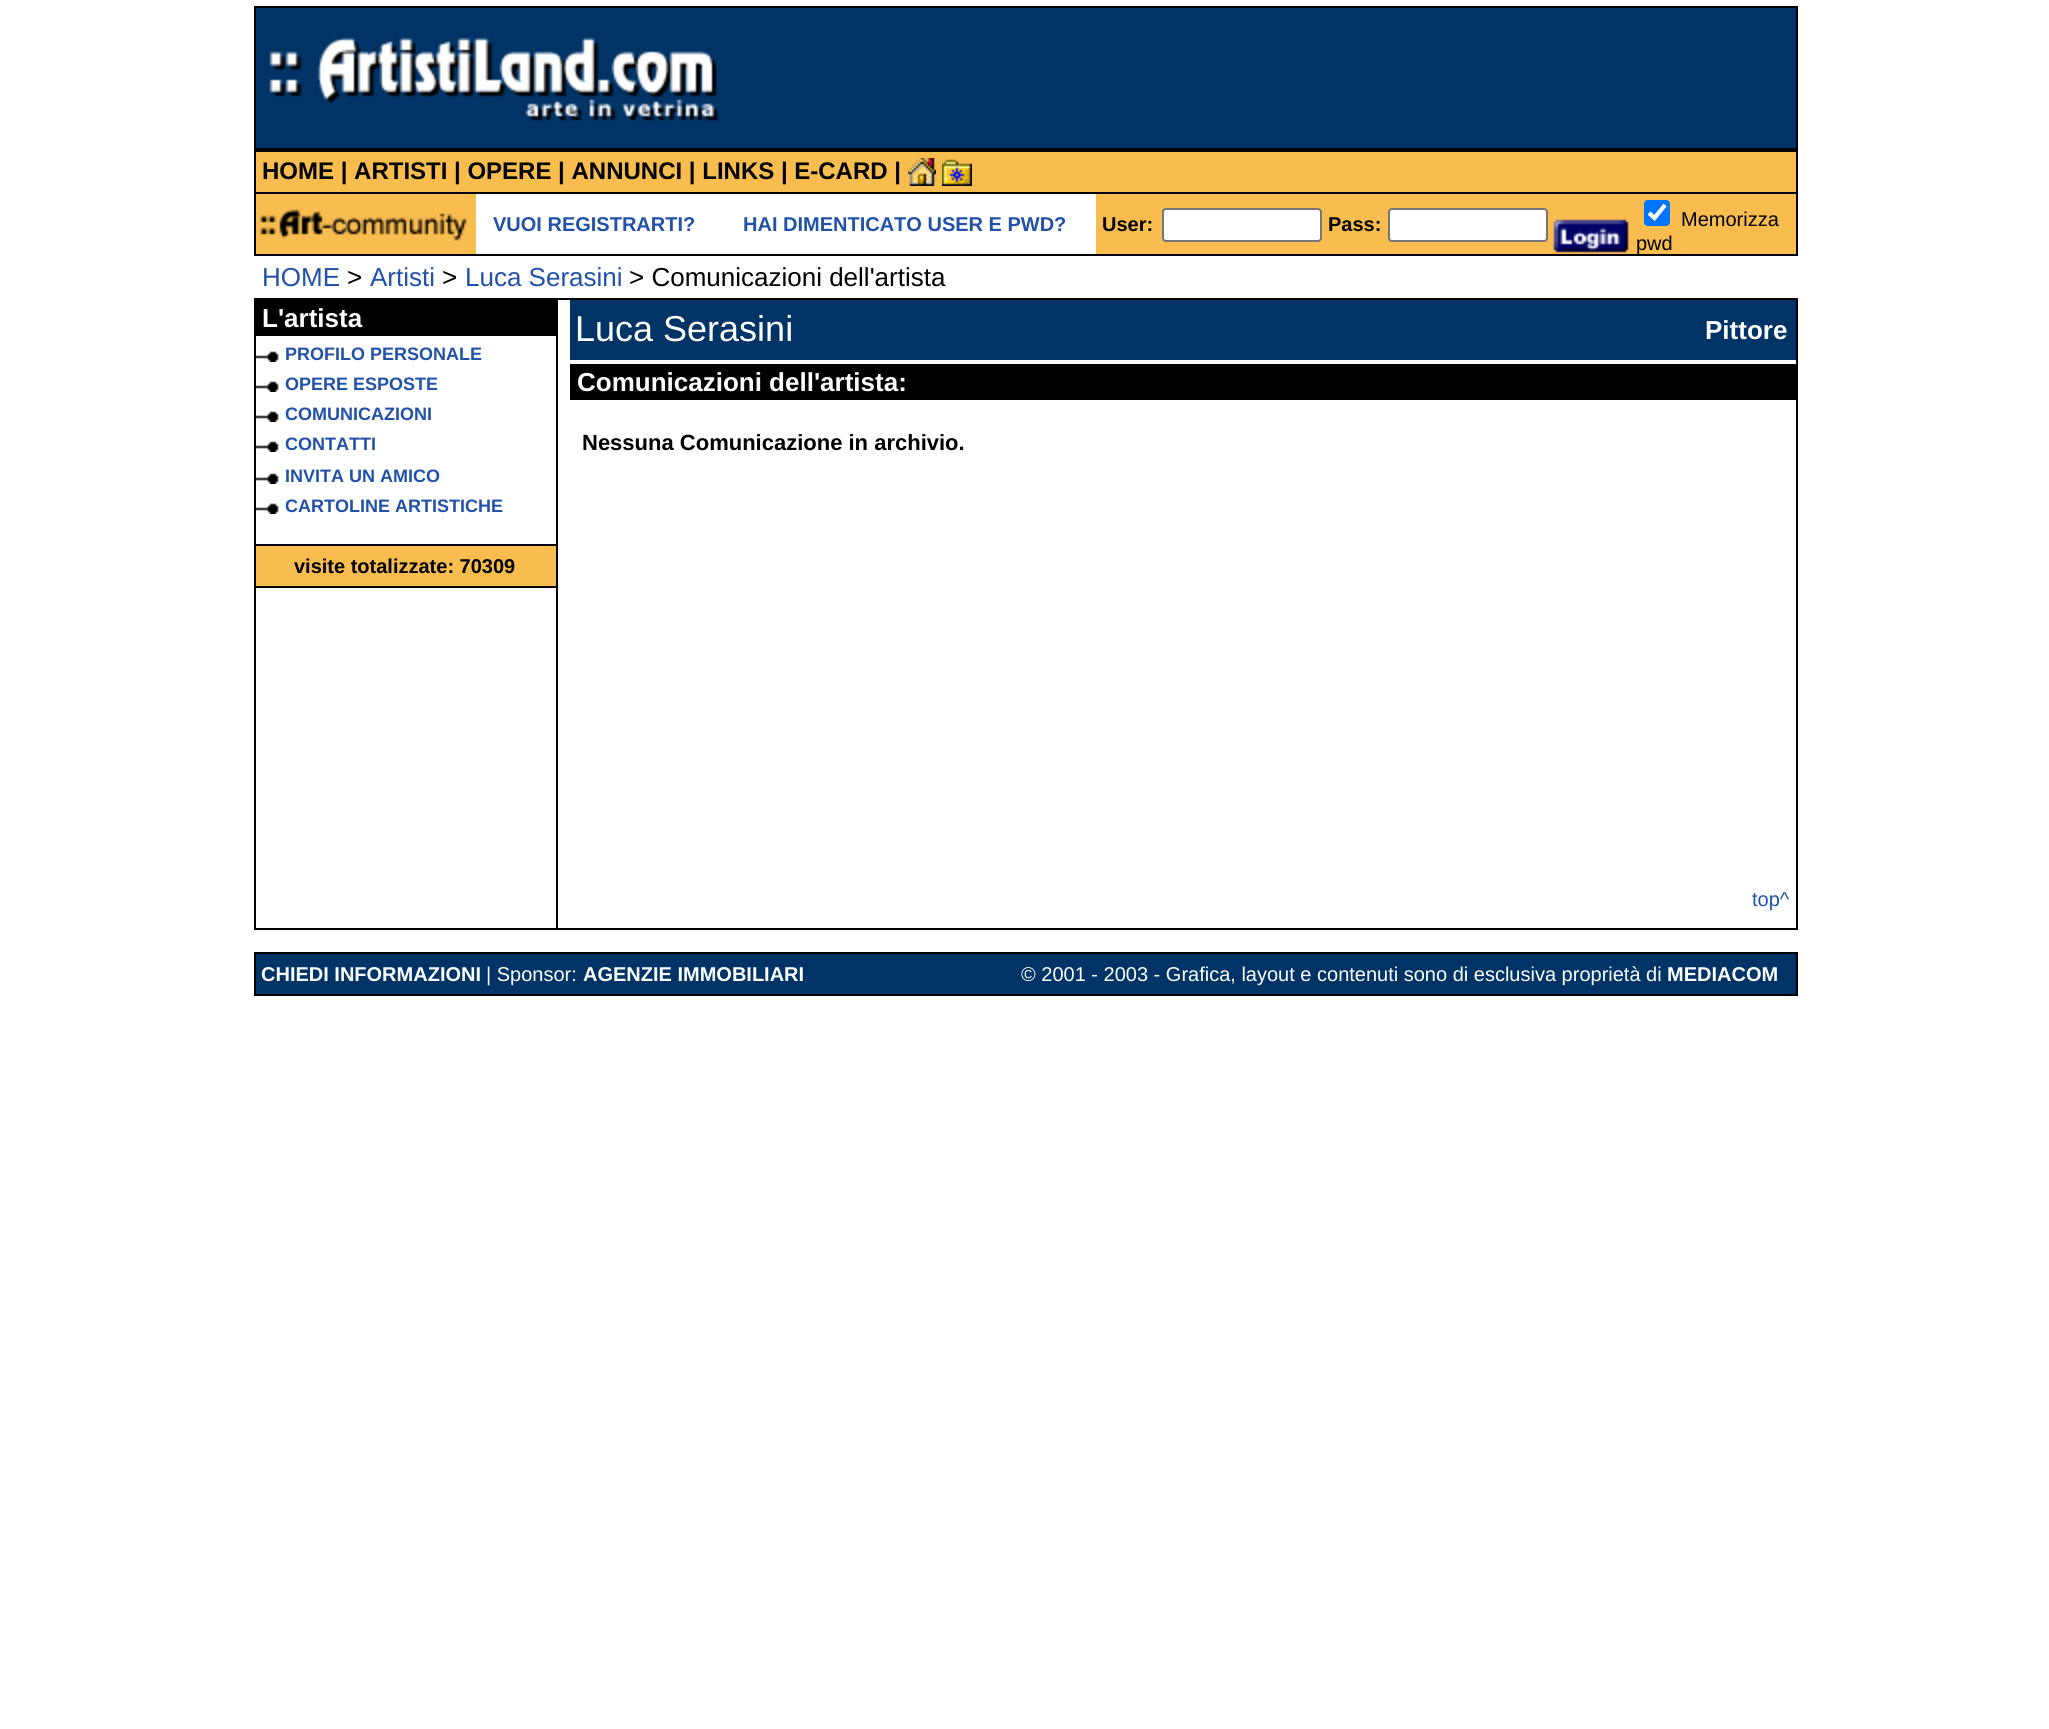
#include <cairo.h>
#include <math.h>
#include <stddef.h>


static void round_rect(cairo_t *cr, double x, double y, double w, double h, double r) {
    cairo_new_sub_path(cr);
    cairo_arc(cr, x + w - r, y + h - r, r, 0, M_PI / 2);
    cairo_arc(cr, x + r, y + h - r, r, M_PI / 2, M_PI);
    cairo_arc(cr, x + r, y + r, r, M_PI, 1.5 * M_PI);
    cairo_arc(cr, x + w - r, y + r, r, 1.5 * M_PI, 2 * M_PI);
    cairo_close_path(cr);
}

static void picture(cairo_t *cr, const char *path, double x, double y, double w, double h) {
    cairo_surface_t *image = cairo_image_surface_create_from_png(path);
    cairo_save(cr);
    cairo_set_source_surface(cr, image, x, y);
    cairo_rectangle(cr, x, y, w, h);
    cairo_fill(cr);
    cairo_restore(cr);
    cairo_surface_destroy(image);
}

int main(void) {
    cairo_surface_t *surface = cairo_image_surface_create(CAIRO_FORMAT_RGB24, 2049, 1729);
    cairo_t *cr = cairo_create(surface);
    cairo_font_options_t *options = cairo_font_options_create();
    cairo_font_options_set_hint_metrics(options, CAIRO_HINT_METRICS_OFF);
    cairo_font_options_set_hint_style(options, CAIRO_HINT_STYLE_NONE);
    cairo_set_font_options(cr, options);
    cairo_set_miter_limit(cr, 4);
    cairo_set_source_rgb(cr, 1, 1, 1);
    cairo_paint(cr);
    cairo_set_source_rgb(cr, 0, 0, 0);
    cairo_rectangle(cr, 254, 6, 1544, 250);
    cairo_fill(cr);
    cairo_set_source_rgb(cr, 0, 0.2, 0.4);
    cairo_rectangle(cr, 256, 8, 1540, 140);
    cairo_fill(cr);
    picture(cr, "img1.png", 269, 37, 450, 84);
    cairo_set_source_rgb(cr, 0.973, 0.737, 0.31);
    cairo_rectangle(cr, 256, 152, 1540, 40);
    cairo_fill(cr);
    cairo_select_font_face(cr, "Liberation Sans", CAIRO_FONT_SLANT_NORMAL, CAIRO_FONT_WEIGHT_BOLD);
    cairo_set_font_size(cr, 24);
    cairo_set_source_rgb(cr, 0, 0, 0);
    cairo_move_to(cr, 262, 179);
    cairo_show_text(cr, "HOME | ARTISTI | OPERE | ANNUNCI | LINKS | E-CARD |");
    picture(cr, "img2.png", 908, 158, 28, 28);
    picture(cr, "img3.png", 942, 159, 30, 27);
    cairo_set_source_rgb(cr, 1, 1, 1);
    cairo_rectangle(cr, 476, 194, 620, 60);
    cairo_fill(cr);
    cairo_set_source_rgb(cr, 0.973, 0.737, 0.31);
    cairo_rectangle(cr, 256, 194, 220, 60);
    cairo_fill(cr);
    picture(cr, "img4.png", 259, 209, 208, 32);
    cairo_set_font_size(cr, 20);
    cairo_set_source_rgb(cr, 0.129, 0.318, 0.663);
    cairo_move_to(cr, 493, 231);
    cairo_show_text(cr, "VUOI REGISTRARTI?");
    cairo_move_to(cr, 743, 231);
    cairo_show_text(cr, "HAI DIMENTICATO USER E PWD?");
    cairo_set_source_rgb(cr, 0.973, 0.737, 0.31);
    cairo_rectangle(cr, 1096, 194, 700, 60);
    cairo_fill(cr);
    cairo_set_source_rgb(cr, 0, 0, 0);
    cairo_move_to(cr, 1102, 231);
    cairo_show_text(cr, "User:");
    cairo_set_source_rgb(cr, 1, 1, 1);
    round_rect(cr, 1163, 209, 158, 32, 3);
    cairo_fill_preserve(cr);
    cairo_set_source_rgb(cr, 0.463, 0.463, 0.463);
    cairo_stroke(cr);
    cairo_set_source_rgb(cr, 0, 0, 0);
    cairo_move_to(cr, 1328, 231);
    cairo_show_text(cr, "Pass:");
    cairo_set_source_rgb(cr, 1, 1, 1);
    round_rect(cr, 1389, 209, 158, 32, 3);
    cairo_fill_preserve(cr);
    cairo_set_source_rgb(cr, 0.463, 0.463, 0.463);
    cairo_stroke(cr);
    picture(cr, "img5.png", 1553, 219, 76, 34);
    cairo_set_source_rgb(cr, 0, 0.459, 1);
    round_rect(cr, 1644, 200, 26, 26, 4);
    cairo_fill(cr);
    cairo_new_path(cr);
    cairo_move_to(cr, 1649, 213);
    cairo_line_to(cr, 1654.5, 218);
    cairo_line_to(cr, 1665, 205);
    cairo_set_source_rgb(cr, 1, 1, 1);
    cairo_set_line_width(cr, 4.2);
    cairo_stroke(cr);
    cairo_select_font_face(cr, "Liberation Sans", CAIRO_FONT_SLANT_NORMAL, CAIRO_FONT_WEIGHT_NORMAL);
    cairo_set_source_rgb(cr, 0, 0, 0);
    cairo_move_to(cr, 1681, 226);
    cairo_show_text(cr, "Memorizza");
    cairo_move_to(cr, 1636, 250);
    cairo_show_text(cr, "pwd");
    cairo_set_font_size(cr, 26);
    cairo_set_source_rgb(cr, 0.129, 0.318, 0.663);
    cairo_move_to(cr, 262, 286);
    cairo_show_text(cr, "HOME");
    cairo_set_source_rgb(cr, 0, 0, 0);
    cairo_move_to(cr, 347, 286);
    cairo_show_text(cr, ">");
    cairo_set_source_rgb(cr, 0.129, 0.318, 0.663);
    cairo_move_to(cr, 370, 286);
    cairo_show_text(cr, "Artisti");
    cairo_set_source_rgb(cr, 0, 0, 0);
    cairo_move_to(cr, 442, 286);
    cairo_show_text(cr, ">");
    cairo_set_source_rgb(cr, 0.129, 0.318, 0.663);
    cairo_move_to(cr, 465, 286);
    cairo_show_text(cr, "Luca Serasini");
    cairo_set_source_rgb(cr, 0, 0, 0);
    cairo_move_to(cr, 629, 286);
    cairo_show_text(cr, "> Comunicazioni dell'artista");
    cairo_rectangle(cr, 254, 298, 1544, 632);
    cairo_fill(cr);
    cairo_set_source_rgb(cr, 1, 1, 1);
    cairo_rectangle(cr, 256, 336, 300, 592);
    cairo_fill(cr);
    cairo_select_font_face(cr, "Liberation Sans", CAIRO_FONT_SLANT_NORMAL, CAIRO_FONT_WEIGHT_BOLD);
    cairo_move_to(cr, 262, 327);
    cairo_show_text(cr, "L'artista");
    picture(cr, "img6.png", 256, 351, 23, 11);
    cairo_set_font_size(cr, 18);
    cairo_set_source_rgb(cr, 0.129, 0.318, 0.663);
    cairo_move_to(cr, 285, 360);
    cairo_show_text(cr, "PROFILO PERSONALE");
    picture(cr, "img6.png", 256, 381, 23, 11);
    cairo_move_to(cr, 285, 390);
    cairo_show_text(cr, "OPERE ESPOSTE");
    picture(cr, "img6.png", 256, 411, 23, 11);
    cairo_move_to(cr, 285, 420);
    cairo_show_text(cr, "COMUNICAZIONI");
    picture(cr, "img6.png", 256, 441, 23, 11);
    cairo_move_to(cr, 285, 450);
    cairo_show_text(cr, "CONTATTI");
    picture(cr, "img6.png", 256, 473, 23, 11);
    cairo_move_to(cr, 285, 482);
    cairo_show_text(cr, "INVITA UN AMICO");
    picture(cr, "img6.png", 256, 503, 23, 11);
    cairo_move_to(cr, 285, 512);
    cairo_show_text(cr, "CARTOLINE ARTISTICHE");
    cairo_set_source_rgb(cr, 0, 0, 0);
    cairo_rectangle(cr, 256, 544, 300, 2);
    cairo_fill(cr);
    cairo_set_source_rgb(cr, 0.973, 0.737, 0.31);
    cairo_rectangle(cr, 256, 546, 300, 40);
    cairo_fill(cr);
    cairo_set_font_size(cr, 20);
    cairo_set_source_rgb(cr, 0, 0, 0);
    cairo_move_to(cr, 294, 573);
    cairo_show_text(cr, "visite totalizzate: 70309");
    cairo_rectangle(cr, 256, 586, 300, 2);
    cairo_fill(cr);
    cairo_set_source_rgb(cr, 1, 1, 1);
    cairo_rectangle(cr, 558, 300, 1238, 628);
    cairo_fill(cr);
    cairo_set_source_rgb(cr, 0, 0.2, 0.4);
    cairo_rectangle(cr, 570, 300, 1226, 60);
    cairo_fill(cr);
    cairo_select_font_face(cr, "Liberation Sans", CAIRO_FONT_SLANT_NORMAL, CAIRO_FONT_WEIGHT_NORMAL);
    cairo_set_font_size(cr, 36);
    cairo_set_source_rgb(cr, 1, 1, 1);
    cairo_move_to(cr, 575, 341);
    cairo_show_text(cr, "Luca Serasini");
    cairo_select_font_face(cr, "Liberation Sans", CAIRO_FONT_SLANT_NORMAL, CAIRO_FONT_WEIGHT_BOLD);
    cairo_set_font_size(cr, 26);
    cairo_move_to(cr, 1705, 339);
    cairo_show_text(cr, "Pittore");
    cairo_set_source_rgb(cr, 0, 0, 0);
    cairo_rectangle(cr, 570, 364, 1226, 36);
    cairo_fill(cr);
    cairo_set_source_rgb(cr, 1, 1, 1);
    cairo_move_to(cr, 577, 391);
    cairo_show_text(cr, "Comunicazioni dell'artista:");
    cairo_set_font_size(cr, 22);
    cairo_set_source_rgb(cr, 0, 0, 0);
    cairo_move_to(cr, 582, 450);
    cairo_show_text(cr, "Nessuna Comunicazione in archivio.");
    cairo_select_font_face(cr, "Liberation Sans", CAIRO_FONT_SLANT_NORMAL, CAIRO_FONT_WEIGHT_NORMAL);
    cairo_set_font_size(cr, 20);
    cairo_set_source_rgb(cr, 0.129, 0.318, 0.663);
    cairo_move_to(cr, 1752, 906);
    cairo_show_text(cr, "top^");
    cairo_set_source_rgb(cr, 0, 0, 0);
    cairo_rectangle(cr, 254, 952, 1544, 44);
    cairo_fill(cr);
    cairo_set_source_rgb(cr, 0, 0.2, 0.4);
    cairo_rectangle(cr, 256, 954, 1540, 40);
    cairo_fill(cr);
    cairo_select_font_face(cr, "Liberation Sans", CAIRO_FONT_SLANT_NORMAL, CAIRO_FONT_WEIGHT_BOLD);
    cairo_set_source_rgb(cr, 1, 1, 1);
    cairo_move_to(cr, 261, 981);
    cairo_show_text(cr, "CHIEDI INFORMAZIONI");
    cairo_select_font_face(cr, "Liberation Sans", CAIRO_FONT_SLANT_NORMAL, CAIRO_FONT_WEIGHT_NORMAL);
    cairo_move_to(cr, 486, 981);
    cairo_show_text(cr, "| Sponsor:");
    cairo_select_font_face(cr, "Liberation Sans", CAIRO_FONT_SLANT_NORMAL, CAIRO_FONT_WEIGHT_BOLD);
    cairo_move_to(cr, 583, 981);
    cairo_show_text(cr, "AGENZIE IMMOBILIARI");
    cairo_select_font_face(cr, "Liberation Sans", CAIRO_FONT_SLANT_NORMAL, CAIRO_FONT_WEIGHT_NORMAL);
    cairo_move_to(cr, 1021, 981);
    cairo_show_text(cr, "© 2001 - 2003 - Grafica, layout e contenuti sono di esclusiva proprietà di");
    cairo_select_font_face(cr, "Liberation Sans", CAIRO_FONT_SLANT_NORMAL, CAIRO_FONT_WEIGHT_BOLD);
    cairo_move_to(cr, 1667, 981);
    cairo_show_text(cr, "MEDIACOM");
    cairo_surface_write_to_png(surface, "page.png");
    cairo_font_options_destroy(options);
    cairo_destroy(cr);
    cairo_surface_destroy(surface);
    return 0;
}
